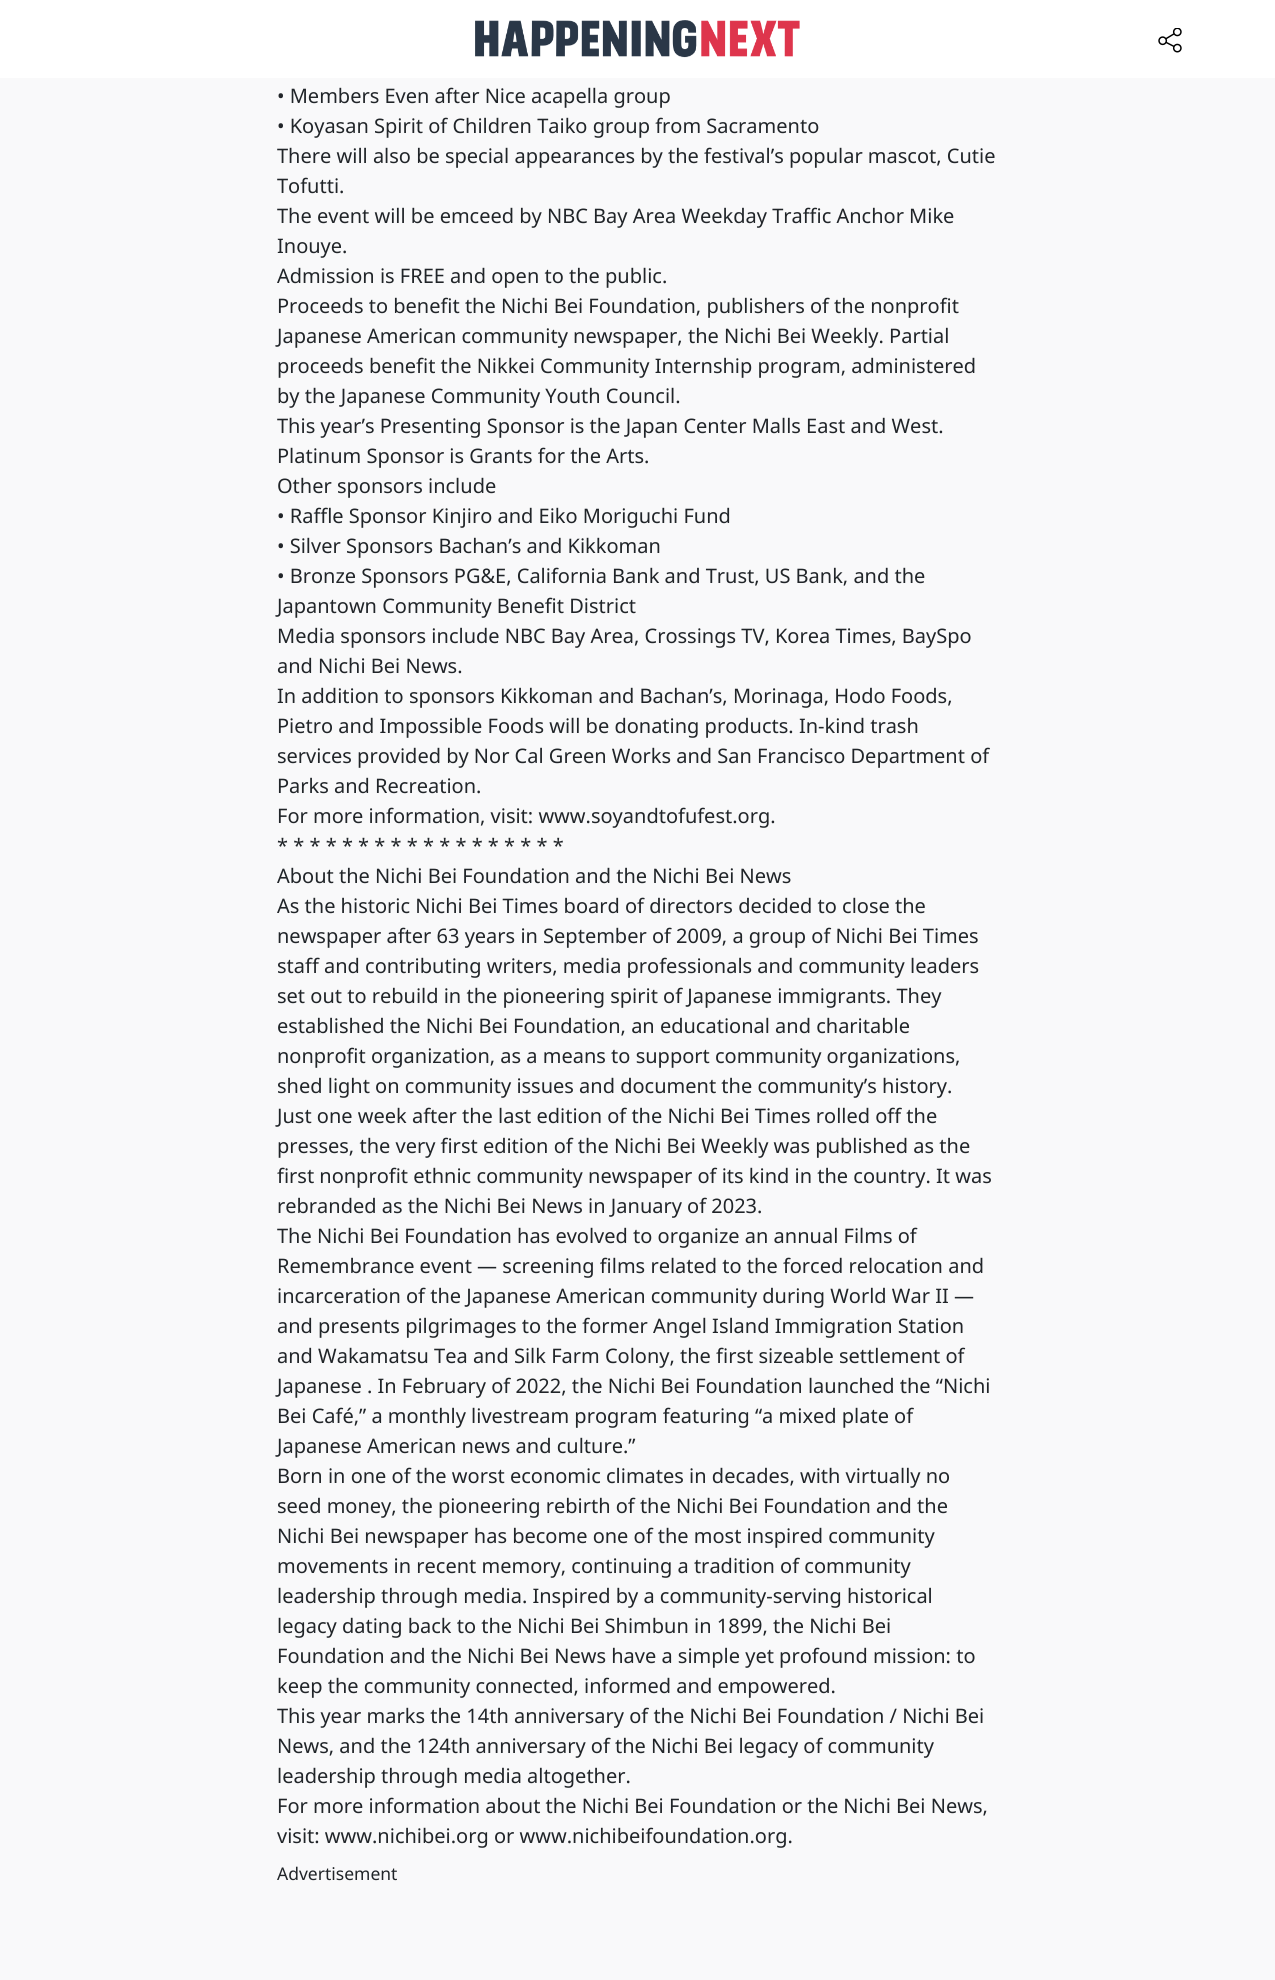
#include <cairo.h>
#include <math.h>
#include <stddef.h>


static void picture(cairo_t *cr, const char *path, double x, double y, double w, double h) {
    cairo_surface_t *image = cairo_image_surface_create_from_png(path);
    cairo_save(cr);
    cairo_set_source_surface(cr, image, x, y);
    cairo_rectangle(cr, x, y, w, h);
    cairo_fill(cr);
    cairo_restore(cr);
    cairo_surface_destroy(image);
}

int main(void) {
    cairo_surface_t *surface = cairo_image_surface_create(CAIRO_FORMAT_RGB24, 1275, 1980);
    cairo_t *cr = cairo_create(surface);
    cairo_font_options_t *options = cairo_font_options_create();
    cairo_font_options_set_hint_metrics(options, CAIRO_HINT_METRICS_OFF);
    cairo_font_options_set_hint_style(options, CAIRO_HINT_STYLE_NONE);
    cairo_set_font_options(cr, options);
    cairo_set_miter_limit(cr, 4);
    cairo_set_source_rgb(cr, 0.973, 0.976, 0.98);
    cairo_paint(cr);
    cairo_set_source_rgb(cr, 1, 1, 1);
    cairo_rectangle(cr, 0, 0, 1275, 78);
    cairo_fill(cr);
    picture(cr, "img1.png", 475, 20, 325, 38);
    picture(cr, "img2.png", 1158, 28, 24, 25);
    cairo_select_font_face(cr, "Noto Sans", CAIRO_FONT_SLANT_NORMAL, CAIRO_FONT_WEIGHT_NORMAL);
    cairo_set_font_size(cr, 20);
    cairo_set_source_rgb(cr, 0.129, 0.145, 0.161);
    cairo_move_to(cr, 277, 103);
    cairo_show_text(cr, "• Members Even after Nice acapella group");
    cairo_move_to(cr, 277, 133);
    cairo_show_text(cr, "• Koyasan Spirit of Children Taiko group from Sacramento");
    cairo_move_to(cr, 277, 163);
    cairo_show_text(cr, "There will also be special appearances by the festival’s popular mascot, Cutie");
    cairo_move_to(cr, 277, 193);
    cairo_show_text(cr, "Tofutti.");
    cairo_move_to(cr, 277, 223);
    cairo_show_text(cr, "The event will be emceed by NBC Bay Area Weekday Traffic Anchor Mike");
    cairo_move_to(cr, 277, 253);
    cairo_show_text(cr, "Inouye.");
    cairo_move_to(cr, 277, 283);
    cairo_show_text(cr, "Admission is FREE and open to the public.");
    cairo_move_to(cr, 277, 313);
    cairo_show_text(cr, "Proceeds to benefit the Nichi Bei Foundation, publishers of the nonprofit");
    cairo_move_to(cr, 277, 343);
    cairo_show_text(cr, "Japanese American community newspaper, the Nichi Bei Weekly. Partial");
    cairo_move_to(cr, 277, 373);
    cairo_show_text(cr, "proceeds benefit the Nikkei Community Internship program, administered");
    cairo_move_to(cr, 277, 403);
    cairo_show_text(cr, "by the Japanese Community Youth Council.");
    cairo_move_to(cr, 277, 433);
    cairo_show_text(cr, "This year’s Presenting Sponsor is the Japan Center Malls East and West.");
    cairo_move_to(cr, 277, 463);
    cairo_show_text(cr, "Platinum Sponsor is Grants for the Arts.");
    cairo_move_to(cr, 277, 493);
    cairo_show_text(cr, "Other sponsors include");
    cairo_move_to(cr, 277, 523);
    cairo_show_text(cr, "• Raffle Sponsor Kinjiro and Eiko Moriguchi Fund");
    cairo_move_to(cr, 277, 553);
    cairo_show_text(cr, "• Silver Sponsors Bachan’s and Kikkoman");
    cairo_move_to(cr, 277, 583);
    cairo_show_text(cr, "• Bronze Sponsors PG&E, California Bank and Trust, US Bank, and the");
    cairo_move_to(cr, 277, 613);
    cairo_show_text(cr, "Japantown Community Benefit District");
    cairo_move_to(cr, 277, 643);
    cairo_show_text(cr, "Media sponsors include NBC Bay Area, Crossings TV, Korea Times, BaySpo");
    cairo_move_to(cr, 277, 673);
    cairo_show_text(cr, "and Nichi Bei News.");
    cairo_move_to(cr, 277, 703);
    cairo_show_text(cr, "In addition to sponsors Kikkoman and Bachan’s, Morinaga, Hodo Foods,");
    cairo_move_to(cr, 277, 733);
    cairo_show_text(cr, "Pietro and Impossible Foods will be donating products. In-kind trash");
    cairo_move_to(cr, 277, 763);
    cairo_show_text(cr, "services provided by Nor Cal Green Works and San Francisco Department of");
    cairo_move_to(cr, 277, 793);
    cairo_show_text(cr, "Parks and Recreation.");
    cairo_move_to(cr, 277, 823);
    cairo_show_text(cr, "For more information, visit: www.soyandtofufest.org.");
    cairo_move_to(cr, 277, 853);
    cairo_show_text(cr, "* * * * * * * * * * * * * * * * * *");
    cairo_move_to(cr, 277, 883);
    cairo_show_text(cr, "About the Nichi Bei Foundation and the Nichi Bei News");
    cairo_move_to(cr, 277, 913);
    cairo_show_text(cr, "As the historic Nichi Bei Times board of directors decided to close the");
    cairo_move_to(cr, 277, 943);
    cairo_show_text(cr, "newspaper after 63 years in September of 2009, a group of Nichi Bei Times");
    cairo_move_to(cr, 277, 973);
    cairo_show_text(cr, "staff and contributing writers, media professionals and community leaders");
    cairo_move_to(cr, 277, 1003);
    cairo_show_text(cr, "set out to rebuild in the pioneering spirit of Japanese immigrants. They");
    cairo_move_to(cr, 277, 1033);
    cairo_show_text(cr, "established the Nichi Bei Foundation, an educational and charitable");
    cairo_move_to(cr, 277, 1063);
    cairo_show_text(cr, "nonprofit organization, as a means to support community organizations,");
    cairo_move_to(cr, 277, 1093);
    cairo_show_text(cr, "shed light on community issues and document the community’s history.");
    cairo_move_to(cr, 277, 1123);
    cairo_show_text(cr, "Just one week after the last edition of the Nichi Bei Times rolled off the");
    cairo_move_to(cr, 277, 1153);
    cairo_show_text(cr, "presses, the very first edition of the Nichi Bei Weekly was published as the");
    cairo_move_to(cr, 277, 1183);
    cairo_show_text(cr, "first nonprofit ethnic community newspaper of its kind in the country. It was");
    cairo_move_to(cr, 277, 1213);
    cairo_show_text(cr, "rebranded as the Nichi Bei News in January of 2023.");
    cairo_move_to(cr, 277, 1243);
    cairo_show_text(cr, "The Nichi Bei Foundation has evolved to organize an annual Films of");
    cairo_move_to(cr, 277, 1273);
    cairo_show_text(cr, "Remembrance event — screening films related to the forced relocation and");
    cairo_move_to(cr, 277, 1303);
    cairo_show_text(cr, "incarceration of the Japanese American community during World War II —");
    cairo_move_to(cr, 277, 1333);
    cairo_show_text(cr, "and presents pilgrimages to the former Angel Island Immigration Station");
    cairo_move_to(cr, 277, 1363);
    cairo_show_text(cr, "and Wakamatsu Tea and Silk Farm Colony, the first sizeable settlement of");
    cairo_move_to(cr, 277, 1393);
    cairo_show_text(cr, "Japanese . In February of 2022, the Nichi Bei Foundation launched the “Nichi");
    cairo_move_to(cr, 277, 1423);
    cairo_show_text(cr, "Bei Café,” a monthly livestream program featuring “a mixed plate of");
    cairo_move_to(cr, 277, 1453);
    cairo_show_text(cr, "Japanese American news and culture.”");
    cairo_move_to(cr, 277, 1483);
    cairo_show_text(cr, "Born in one of the worst economic climates in decades, with virtually no");
    cairo_move_to(cr, 277, 1513);
    cairo_show_text(cr, "seed money, the pioneering rebirth of the Nichi Bei Foundation and the");
    cairo_move_to(cr, 277, 1543);
    cairo_show_text(cr, "Nichi Bei newspaper has become one of the most inspired community");
    cairo_move_to(cr, 277, 1573);
    cairo_show_text(cr, "movements in recent memory, continuing a tradition of community");
    cairo_move_to(cr, 277, 1603);
    cairo_show_text(cr, "leadership through media. Inspired by a community-serving historical");
    cairo_move_to(cr, 277, 1633);
    cairo_show_text(cr, "legacy dating back to the Nichi Bei Shimbun in 1899, the Nichi Bei");
    cairo_move_to(cr, 277, 1663);
    cairo_show_text(cr, "Foundation and the Nichi Bei News have a simple yet profound mission: to");
    cairo_move_to(cr, 277, 1693);
    cairo_show_text(cr, "keep the community connected, informed and empowered.");
    cairo_move_to(cr, 277, 1723);
    cairo_show_text(cr, "This year marks the 14th anniversary of the Nichi Bei Foundation / Nichi Bei");
    cairo_move_to(cr, 277, 1753);
    cairo_show_text(cr, "News, and the 124th anniversary of the Nichi Bei legacy of community");
    cairo_move_to(cr, 277, 1783);
    cairo_show_text(cr, "leadership through media altogether.");
    cairo_move_to(cr, 277, 1813);
    cairo_show_text(cr, "For more information about the Nichi Bei Foundation or the Nichi Bei News,");
    cairo_move_to(cr, 277, 1843);
    cairo_show_text(cr, "visit: www.nichibei.org or www.nichibeifoundation.org.");
    cairo_set_font_size(cr, 17.5);
    cairo_move_to(cr, 277, 1880);
    cairo_show_text(cr, "Advertisement");
    cairo_surface_write_to_png(surface, "page.png");
    cairo_font_options_destroy(options);
    cairo_destroy(cr);
    cairo_surface_destroy(surface);
    return 0;
}
